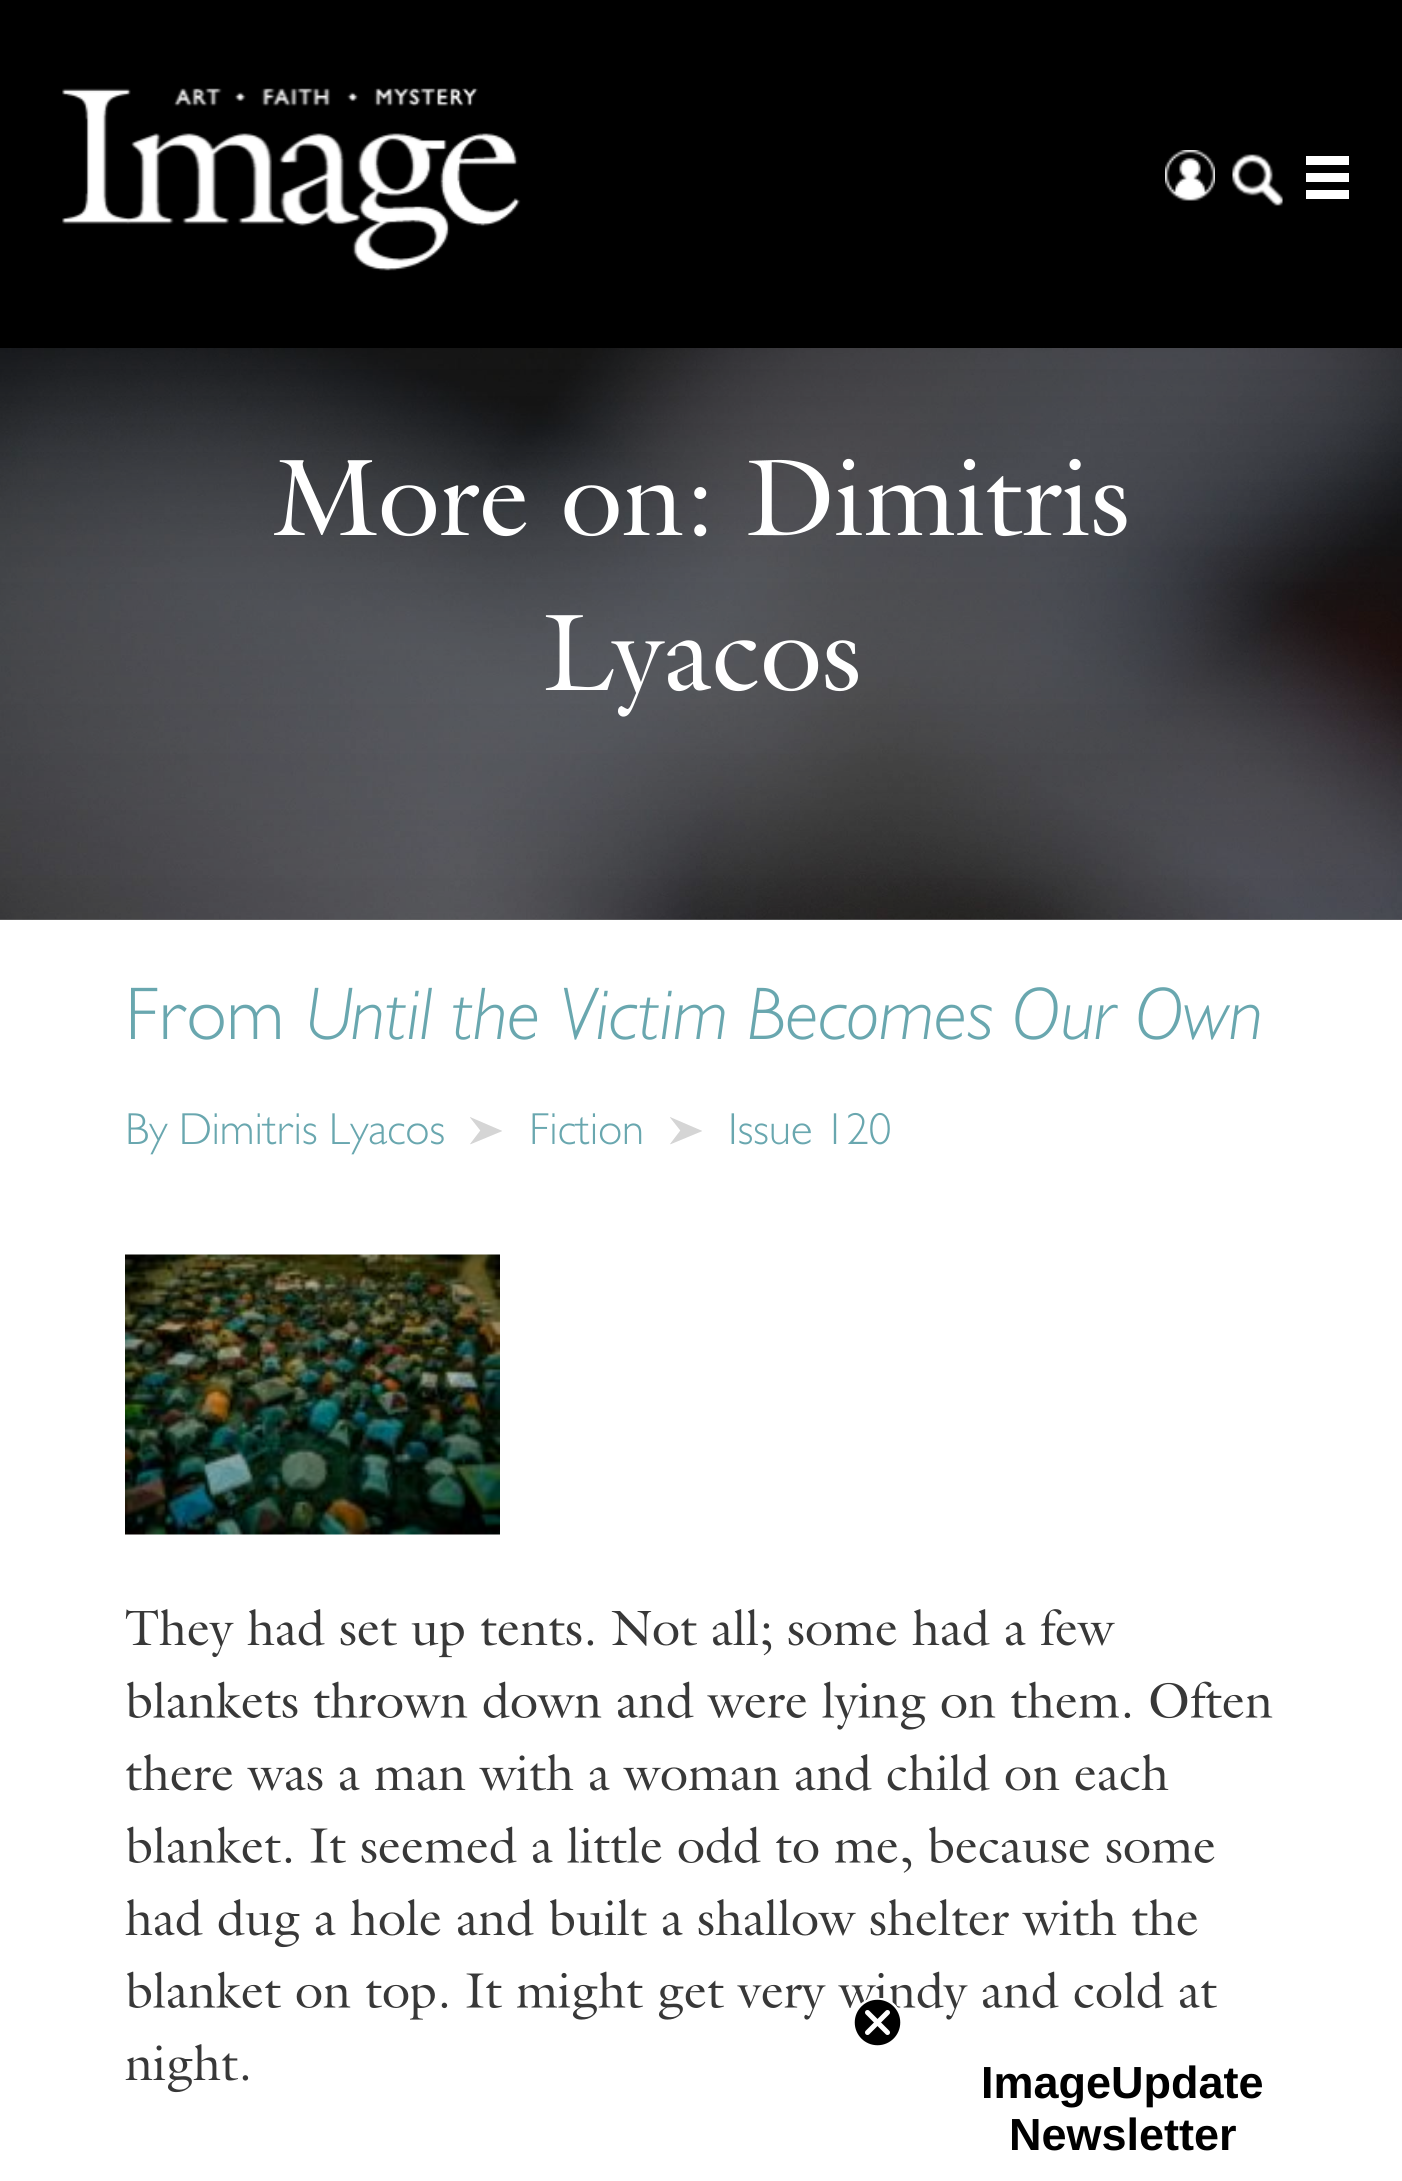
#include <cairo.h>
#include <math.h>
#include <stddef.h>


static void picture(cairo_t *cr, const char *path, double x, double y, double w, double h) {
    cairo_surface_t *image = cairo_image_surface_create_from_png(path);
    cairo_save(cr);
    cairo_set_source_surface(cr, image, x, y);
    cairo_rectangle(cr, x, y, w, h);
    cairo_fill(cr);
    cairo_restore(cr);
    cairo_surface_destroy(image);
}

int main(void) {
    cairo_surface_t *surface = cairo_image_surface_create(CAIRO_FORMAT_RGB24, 1402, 2181);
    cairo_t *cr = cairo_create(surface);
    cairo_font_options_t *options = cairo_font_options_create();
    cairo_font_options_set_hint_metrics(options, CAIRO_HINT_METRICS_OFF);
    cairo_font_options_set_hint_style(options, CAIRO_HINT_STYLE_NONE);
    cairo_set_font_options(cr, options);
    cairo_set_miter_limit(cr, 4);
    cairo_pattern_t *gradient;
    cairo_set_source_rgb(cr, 1, 1, 1);
    cairo_paint(cr);
    cairo_set_source_rgb(cr, 0, 0, 0);
    cairo_rectangle(cr, 0, 0, 1402, 348);
    cairo_fill(cr);
    picture(cr, "img1.png", 62, 88, 459, 183);
    picture(cr, "img2.png", 1165, 150, 50, 51);
    picture(cr, "img3.png", 1232, 154, 51, 52);
    cairo_set_source_rgb(cr, 1, 1, 1);
    cairo_new_path(cr);
    cairo_move_to(cr, 1306, 199);
    cairo_line_to(cr, 1349, 199);
    cairo_line_to(cr, 1349, 190);
    cairo_line_to(cr, 1306, 190);
    cairo_close_path(cr);
    cairo_move_to(cr, 1306, 156);
    cairo_line_to(cr, 1306, 165);
    cairo_line_to(cr, 1349, 165);
    cairo_line_to(cr, 1349, 156);
    cairo_close_path(cr);
    cairo_move_to(cr, 1306, 182);
    cairo_line_to(cr, 1349, 182);
    cairo_line_to(cr, 1349, 173);
    cairo_line_to(cr, 1306, 173);
    cairo_close_path(cr);
    cairo_fill(cr);
    picture(cr, "img4.png", 0, 919, 1402, 1);
    picture(cr, "img5.png", 0, 348, 1402, 572);
    gradient = cairo_pattern_create_linear(701, 260, 701, 920);
    cairo_pattern_add_color_stop_rgba(gradient, 0, 0.176, 0.176, 0.176, 0.4);
    cairo_pattern_add_color_stop_rgba(gradient, 1, 0, 0, 0, 0.16);
    cairo_set_source(cr, gradient);
    cairo_pattern_destroy(gradient);
    cairo_rectangle(cr, 0, 348, 1402, 572);
    cairo_fill(cr);
    picture(cr, "img6.png", 274, 460, 433, 77);
    picture(cr, "img7.png", 748, 458, 379, 79);
    picture(cr, "img8.png", 545, 615, 313, 102);
    cairo_select_font_face(cr, "Gill Sans", CAIRO_FONT_SLANT_NORMAL, CAIRO_FONT_WEIGHT_NORMAL);
    cairo_set_font_size(cr, 75);
    cairo_set_source_rgb(cr, 0.412, 0.655, 0.686);
    cairo_move_to(cr, 125, 1039);
    cairo_show_text(cr, "From");
    cairo_select_font_face(cr, "Gill Sans", CAIRO_FONT_SLANT_ITALIC, CAIRO_FONT_WEIGHT_NORMAL);
    cairo_move_to(cr, 303, 1039);
    cairo_show_text(cr, "Until the Victim Becomes Our Own");
    cairo_select_font_face(cr, "Gill Sans", CAIRO_FONT_SLANT_NORMAL, CAIRO_FONT_WEIGHT_NORMAL);
    cairo_set_font_size(cr, 45);
    cairo_move_to(cr, 125, 1144);
    cairo_show_text(cr, "By Dimitris Lyacos");
    picture(cr, "img9.png", 470, 1117, 32, 28);
    cairo_move_to(cr, 529, 1144);
    cairo_show_text(cr, "Fiction");
    picture(cr, "img9.png", 670, 1117, 32, 28);
    cairo_move_to(cr, 728, 1144);
    cairo_show_text(cr, "Issue 120");
    picture(cr, "img10.png", 125, 1254, 375, 281);
    picture(cr, "img11.png", 125, 1609, 990, 49);
    picture(cr, "img12.png", 127, 1681, 1146, 49);
    picture(cr, "img13.png", 126, 1754, 1043, 37);
    picture(cr, "img14.png", 127, 1826, 1088, 47);
    picture(cr, "img15.png", 125, 1899, 1073, 49);
    picture(cr, "img16.png", 127, 1971, 1090, 49);
    picture(cr, "img17.png", 125, 2044, 124, 49);
    cairo_set_source_rgb(cr, 0, 0, 0);
    cairo_arc(cr, 877.5, 2022.5, 24, 0, 2 * M_PI);
    cairo_fill(cr);
    cairo_save(cr);
    cairo_rectangle(cr, 853, 1998, 50, 50);
    cairo_clip(cr);
    cairo_arc(cr, 877.5, 2022.5, 24, 0, 2 * M_PI);
    cairo_set_source_rgb(cr, 1, 1, 1);
    cairo_set_line_width(cr, 2.5);
    cairo_stroke(cr);
    cairo_restore(cr);
    cairo_new_path(cr);
    cairo_move_to(cr, 867.5, 2012.5);
    cairo_line_to(cr, 887.5, 2032.5);
    cairo_move_to(cr, 867.5, 2032.5);
    cairo_line_to(cr, 887.5, 2012.5);
    cairo_close_path(cr);
    cairo_set_source_rgb(cr, 1, 1, 1);
    cairo_set_line_width(cr, 5);
    cairo_set_line_cap(cr, CAIRO_LINE_CAP_ROUND);
    cairo_set_line_join(cr, CAIRO_LINE_JOIN_ROUND);
    cairo_stroke(cr);
    cairo_select_font_face(cr, "Liberation Sans", CAIRO_FONT_SLANT_NORMAL, CAIRO_FONT_WEIGHT_BOLD);
    cairo_set_source_rgb(cr, 0, 0, 0);
    cairo_move_to(cr, 981, 2098);
    cairo_show_text(cr, "ImageUpdate");
    cairo_move_to(cr, 1009, 2150);
    cairo_show_text(cr, "Newsletter");
    cairo_surface_write_to_png(surface, "page.png");
    cairo_font_options_destroy(options);
    cairo_destroy(cr);
    cairo_surface_destroy(surface);
    return 0;
}
